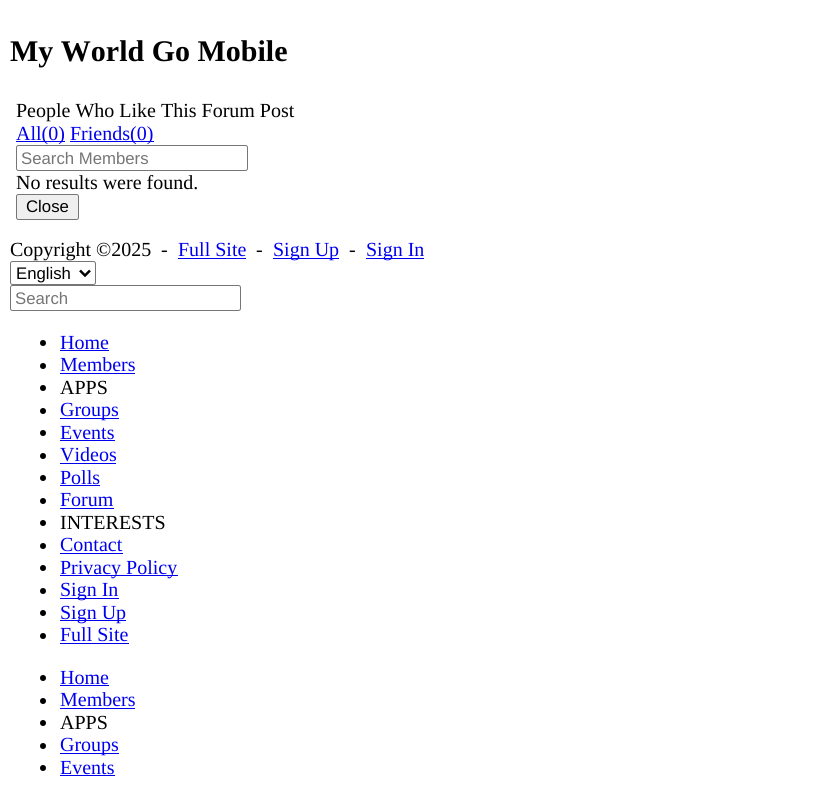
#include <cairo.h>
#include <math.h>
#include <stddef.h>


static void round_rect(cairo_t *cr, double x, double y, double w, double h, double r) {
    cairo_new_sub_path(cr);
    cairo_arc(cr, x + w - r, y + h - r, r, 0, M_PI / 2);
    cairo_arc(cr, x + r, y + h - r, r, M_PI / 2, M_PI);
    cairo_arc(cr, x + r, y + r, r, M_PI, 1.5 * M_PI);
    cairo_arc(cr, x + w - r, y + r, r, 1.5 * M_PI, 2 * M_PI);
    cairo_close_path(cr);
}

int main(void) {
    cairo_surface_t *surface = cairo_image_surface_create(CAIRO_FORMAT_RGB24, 838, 788);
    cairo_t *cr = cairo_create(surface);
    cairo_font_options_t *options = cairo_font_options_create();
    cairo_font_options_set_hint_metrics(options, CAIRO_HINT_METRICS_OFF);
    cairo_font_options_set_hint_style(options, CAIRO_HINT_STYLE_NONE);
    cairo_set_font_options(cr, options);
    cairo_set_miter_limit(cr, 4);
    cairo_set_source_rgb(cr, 1, 1, 1);
    cairo_paint(cr);
    cairo_select_font_face(cr, "Liberation Serif", CAIRO_FONT_SLANT_NORMAL, CAIRO_FONT_WEIGHT_BOLD);
    cairo_set_font_size(cr, 30);
    cairo_set_source_rgb(cr, 0, 0, 0);
    cairo_move_to(cr, 10, 61);
    cairo_show_text(cr, "My World Go Mobile");
    cairo_select_font_face(cr, "Liberation Serif", CAIRO_FONT_SLANT_NORMAL, CAIRO_FONT_WEIGHT_NORMAL);
    cairo_set_font_size(cr, 20);
    cairo_move_to(cr, 16, 117);
    cairo_show_text(cr, "People Who Like This Forum Post");
    cairo_set_source_rgb(cr, 0, 0, 0.933);
    cairo_rectangle(cr, 16, 141, 49, 1);
    cairo_fill(cr);
    cairo_move_to(cr, 16, 140);
    cairo_show_text(cr, "All(0)");
    cairo_rectangle(cr, 70, 141, 84, 1);
    cairo_fill(cr);
    cairo_move_to(cr, 70, 140);
    cairo_show_text(cr, "Friends(0)");
    round_rect(cr, 16.5, 145.5, 231, 25, 2);
    cairo_set_source_rgb(cr, 0.463, 0.463, 0.463);
    cairo_set_line_width(cr, 1);
    cairo_stroke(cr);
    cairo_select_font_face(cr, "Liberation Sans", CAIRO_FONT_SLANT_NORMAL, CAIRO_FONT_WEIGHT_NORMAL);
    cairo_set_font_size(cr, 16.75);
    cairo_set_source_rgb(cr, 0.459, 0.459, 0.459);
    cairo_move_to(cr, 21, 164);
    cairo_show_text(cr, "Search Members");
    cairo_select_font_face(cr, "Liberation Serif", CAIRO_FONT_SLANT_NORMAL, CAIRO_FONT_WEIGHT_NORMAL);
    cairo_set_font_size(cr, 20);
    cairo_set_source_rgb(cr, 0, 0, 0);
    cairo_move_to(cr, 16, 189);
    cairo_show_text(cr, "No results were found.");
    cairo_set_source_rgb(cr, 0.937, 0.937, 0.937);
    round_rect(cr, 16.5, 194.5, 62, 25, 2);
    cairo_fill_preserve(cr);
    cairo_set_source_rgb(cr, 0.463, 0.463, 0.463);
    cairo_stroke(cr);
    cairo_select_font_face(cr, "Liberation Sans", CAIRO_FONT_SLANT_NORMAL, CAIRO_FONT_WEIGHT_NORMAL);
    cairo_set_font_size(cr, 16.75);
    cairo_set_source_rgb(cr, 0, 0, 0);
    cairo_move_to(cr, 26, 212);
    cairo_show_text(cr, "Close");
    cairo_select_font_face(cr, "Liberation Serif", CAIRO_FONT_SLANT_NORMAL, CAIRO_FONT_WEIGHT_NORMAL);
    cairo_set_font_size(cr, 20);
    cairo_move_to(cr, 10, 256);
    cairo_show_text(cr, "Copyright ©2025");
    cairo_move_to(cr, 161, 256);
    cairo_show_text(cr, "-");
    cairo_set_source_rgb(cr, 0, 0, 0.933);
    cairo_move_to(cr, 178, 256);
    cairo_show_text(cr, "Full Site");
    cairo_rectangle(cr, 178, 258, 68, 1);
    cairo_fill(cr);
    cairo_set_source_rgb(cr, 0, 0, 0);
    cairo_move_to(cr, 256, 256);
    cairo_show_text(cr, "-");
    cairo_set_source_rgb(cr, 0, 0, 0.933);
    cairo_rectangle(cr, 273, 258, 66, 1);
    cairo_fill(cr);
    cairo_move_to(cr, 273, 256);
    cairo_show_text(cr, "Sign Up");
    cairo_set_source_rgb(cr, 0, 0, 0);
    cairo_move_to(cr, 349, 256);
    cairo_show_text(cr, "-");
    cairo_set_source_rgb(cr, 0, 0, 0.933);
    cairo_rectangle(cr, 366, 258, 58, 1);
    cairo_fill(cr);
    cairo_move_to(cr, 366, 256);
    cairo_show_text(cr, "Sign In");
    round_rect(cr, 10.5, 261.5, 85, 23, 2);
    cairo_set_source_rgb(cr, 0.463, 0.463, 0.463);
    cairo_stroke(cr);
    cairo_new_path(cr);
    cairo_move_to(cr, 80, 270.5);
    cairo_line_to(cr, 85, 275.5);
    cairo_line_to(cr, 90, 270.5);
    cairo_set_source_rgb(cr, 0, 0, 0);
    cairo_set_line_width(cr, 2.5);
    cairo_stroke(cr);
    cairo_select_font_face(cr, "Liberation Sans", CAIRO_FONT_SLANT_NORMAL, CAIRO_FONT_WEIGHT_NORMAL);
    cairo_set_font_size(cr, 16.75);
    cairo_move_to(cr, 16, 279);
    cairo_show_text(cr, "English");
    round_rect(cr, 10.5, 285.5, 230, 25, 2);
    cairo_set_source_rgb(cr, 0.463, 0.463, 0.463);
    cairo_set_line_width(cr, 1);
    cairo_stroke(cr);
    cairo_set_source_rgb(cr, 0.459, 0.459, 0.459);
    cairo_move_to(cr, 15, 304);
    cairo_show_text(cr, "Search");
    cairo_set_source_rgb(cr, 0, 0, 0);
    cairo_new_path(cr);
    cairo_arc(cr, 43, 343, 3, 0, 2 * M_PI);
    cairo_fill(cr);
    cairo_select_font_face(cr, "Liberation Serif", CAIRO_FONT_SLANT_NORMAL, CAIRO_FONT_WEIGHT_NORMAL);
    cairo_set_font_size(cr, 20);
    cairo_set_source_rgb(cr, 0, 0, 0.933);
    cairo_move_to(cr, 60, 349);
    cairo_show_text(cr, "Home");
    cairo_rectangle(cr, 60, 350, 49, 1);
    cairo_fill(cr);
    cairo_set_source_rgb(cr, 0, 0, 0);
    cairo_arc(cr, 43, 366, 3, 0, 2 * M_PI);
    cairo_fill(cr);
    cairo_set_source_rgb(cr, 0, 0, 0.933);
    cairo_move_to(cr, 60, 371);
    cairo_show_text(cr, "Members");
    cairo_rectangle(cr, 60, 373, 75, 1);
    cairo_fill(cr);
    cairo_set_source_rgb(cr, 0, 0, 0);
    cairo_arc(cr, 43, 388, 3, 0, 2 * M_PI);
    cairo_fill(cr);
    cairo_move_to(cr, 60, 394);
    cairo_show_text(cr, "APPS");
    cairo_new_path(cr);
    cairo_arc(cr, 43, 411, 3, 0, 2 * M_PI);
    cairo_fill(cr);
    cairo_set_source_rgb(cr, 0, 0, 0.933);
    cairo_rectangle(cr, 60, 418, 59, 1);
    cairo_fill(cr);
    cairo_move_to(cr, 60, 416);
    cairo_show_text(cr, "Groups");
    cairo_set_source_rgb(cr, 0, 0, 0);
    cairo_new_path(cr);
    cairo_arc(cr, 43, 433, 3, 0, 2 * M_PI);
    cairo_fill(cr);
    cairo_set_source_rgb(cr, 0, 0, 0.933);
    cairo_move_to(cr, 60, 439);
    cairo_show_text(cr, "Events");
    cairo_rectangle(cr, 60, 440, 55, 1);
    cairo_fill(cr);
    cairo_set_source_rgb(cr, 0, 0, 0);
    cairo_arc(cr, 43, 456, 3, 0, 2 * M_PI);
    cairo_fill(cr);
    cairo_set_source_rgb(cr, 0, 0, 0.933);
    cairo_move_to(cr, 60, 461);
    cairo_show_text(cr, "Videos");
    cairo_rectangle(cr, 60, 463, 56, 1);
    cairo_fill(cr);
    cairo_set_source_rgb(cr, 0, 0, 0);
    cairo_arc(cr, 43, 478, 3, 0, 2 * M_PI);
    cairo_fill(cr);
    cairo_set_source_rgb(cr, 0, 0, 0.933);
    cairo_move_to(cr, 60, 484);
    cairo_show_text(cr, "Polls");
    cairo_rectangle(cr, 60, 485, 40, 1);
    cairo_fill(cr);
    cairo_set_source_rgb(cr, 0, 0, 0);
    cairo_arc(cr, 43, 501, 3, 0, 2 * M_PI);
    cairo_fill(cr);
    cairo_set_source_rgb(cr, 0, 0, 0.933);
    cairo_move_to(cr, 60, 506);
    cairo_show_text(cr, "Forum");
    cairo_rectangle(cr, 60, 508, 54, 1);
    cairo_fill(cr);
    cairo_set_source_rgb(cr, 0, 0, 0);
    cairo_arc(cr, 43, 523, 3, 0, 2 * M_PI);
    cairo_fill(cr);
    cairo_move_to(cr, 60, 529);
    cairo_show_text(cr, "INTERESTS");
    cairo_new_path(cr);
    cairo_arc(cr, 43, 546, 3, 0, 2 * M_PI);
    cairo_fill(cr);
    cairo_set_source_rgb(cr, 0, 0, 0.933);
    cairo_move_to(cr, 60, 551);
    cairo_show_text(cr, "Contact");
    cairo_rectangle(cr, 60, 553, 63, 1);
    cairo_fill(cr);
    cairo_set_source_rgb(cr, 0, 0, 0);
    cairo_arc(cr, 43, 568, 3, 0, 2 * M_PI);
    cairo_fill(cr);
    cairo_set_source_rgb(cr, 0, 0, 0.933);
    cairo_rectangle(cr, 60, 575, 118, 1);
    cairo_fill(cr);
    cairo_move_to(cr, 60, 574);
    cairo_show_text(cr, "Privacy Policy");
    cairo_set_source_rgb(cr, 0, 0, 0);
    cairo_new_path(cr);
    cairo_arc(cr, 43, 591, 3, 0, 2 * M_PI);
    cairo_fill(cr);
    cairo_set_source_rgb(cr, 0, 0, 0.933);
    cairo_rectangle(cr, 60, 598, 59, 1);
    cairo_fill(cr);
    cairo_move_to(cr, 60, 596);
    cairo_show_text(cr, "Sign In");
    cairo_set_source_rgb(cr, 0, 0, 0);
    cairo_new_path(cr);
    cairo_arc(cr, 43, 613, 3, 0, 2 * M_PI);
    cairo_fill(cr);
    cairo_set_source_rgb(cr, 0, 0, 0.933);
    cairo_rectangle(cr, 60, 620, 66, 1);
    cairo_fill(cr);
    cairo_move_to(cr, 60, 619);
    cairo_show_text(cr, "Sign Up");
    cairo_set_source_rgb(cr, 0, 0, 0);
    cairo_new_path(cr);
    cairo_arc(cr, 43, 636, 3, 0, 2 * M_PI);
    cairo_fill(cr);
    cairo_set_source_rgb(cr, 0, 0, 0.933);
    cairo_move_to(cr, 60, 641);
    cairo_show_text(cr, "Full Site");
    cairo_rectangle(cr, 60, 643, 69, 1);
    cairo_fill(cr);
    cairo_set_source_rgb(cr, 0, 0, 0);
    cairo_arc(cr, 43, 678, 3, 0, 2 * M_PI);
    cairo_fill(cr);
    cairo_set_source_rgb(cr, 0, 0, 0.933);
    cairo_move_to(cr, 60, 684);
    cairo_show_text(cr, "Home");
    cairo_rectangle(cr, 60, 685, 49, 1);
    cairo_fill(cr);
    cairo_set_source_rgb(cr, 0, 0, 0);
    cairo_arc(cr, 43, 701, 3, 0, 2 * M_PI);
    cairo_fill(cr);
    cairo_set_source_rgb(cr, 0, 0, 0.933);
    cairo_move_to(cr, 60, 706);
    cairo_show_text(cr, "Members");
    cairo_rectangle(cr, 60, 708, 75, 1);
    cairo_fill(cr);
    cairo_set_source_rgb(cr, 0, 0, 0);
    cairo_arc(cr, 43, 723, 3, 0, 2 * M_PI);
    cairo_fill(cr);
    cairo_move_to(cr, 60, 729);
    cairo_show_text(cr, "APPS");
    cairo_new_path(cr);
    cairo_arc(cr, 43, 746, 3, 0, 2 * M_PI);
    cairo_fill(cr);
    cairo_set_source_rgb(cr, 0, 0, 0.933);
    cairo_rectangle(cr, 60, 753, 59, 1);
    cairo_fill(cr);
    cairo_move_to(cr, 60, 751);
    cairo_show_text(cr, "Groups");
    cairo_set_source_rgb(cr, 0, 0, 0);
    cairo_new_path(cr);
    cairo_arc(cr, 43, 768, 3, 0, 2 * M_PI);
    cairo_fill(cr);
    cairo_set_source_rgb(cr, 0, 0, 0.933);
    cairo_move_to(cr, 60, 774);
    cairo_show_text(cr, "Events");
    cairo_rectangle(cr, 60, 775, 55, 1);
    cairo_fill(cr);
    cairo_surface_write_to_png(surface, "page.png");
    cairo_font_options_destroy(options);
    cairo_destroy(cr);
    cairo_surface_destroy(surface);
    return 0;
}
